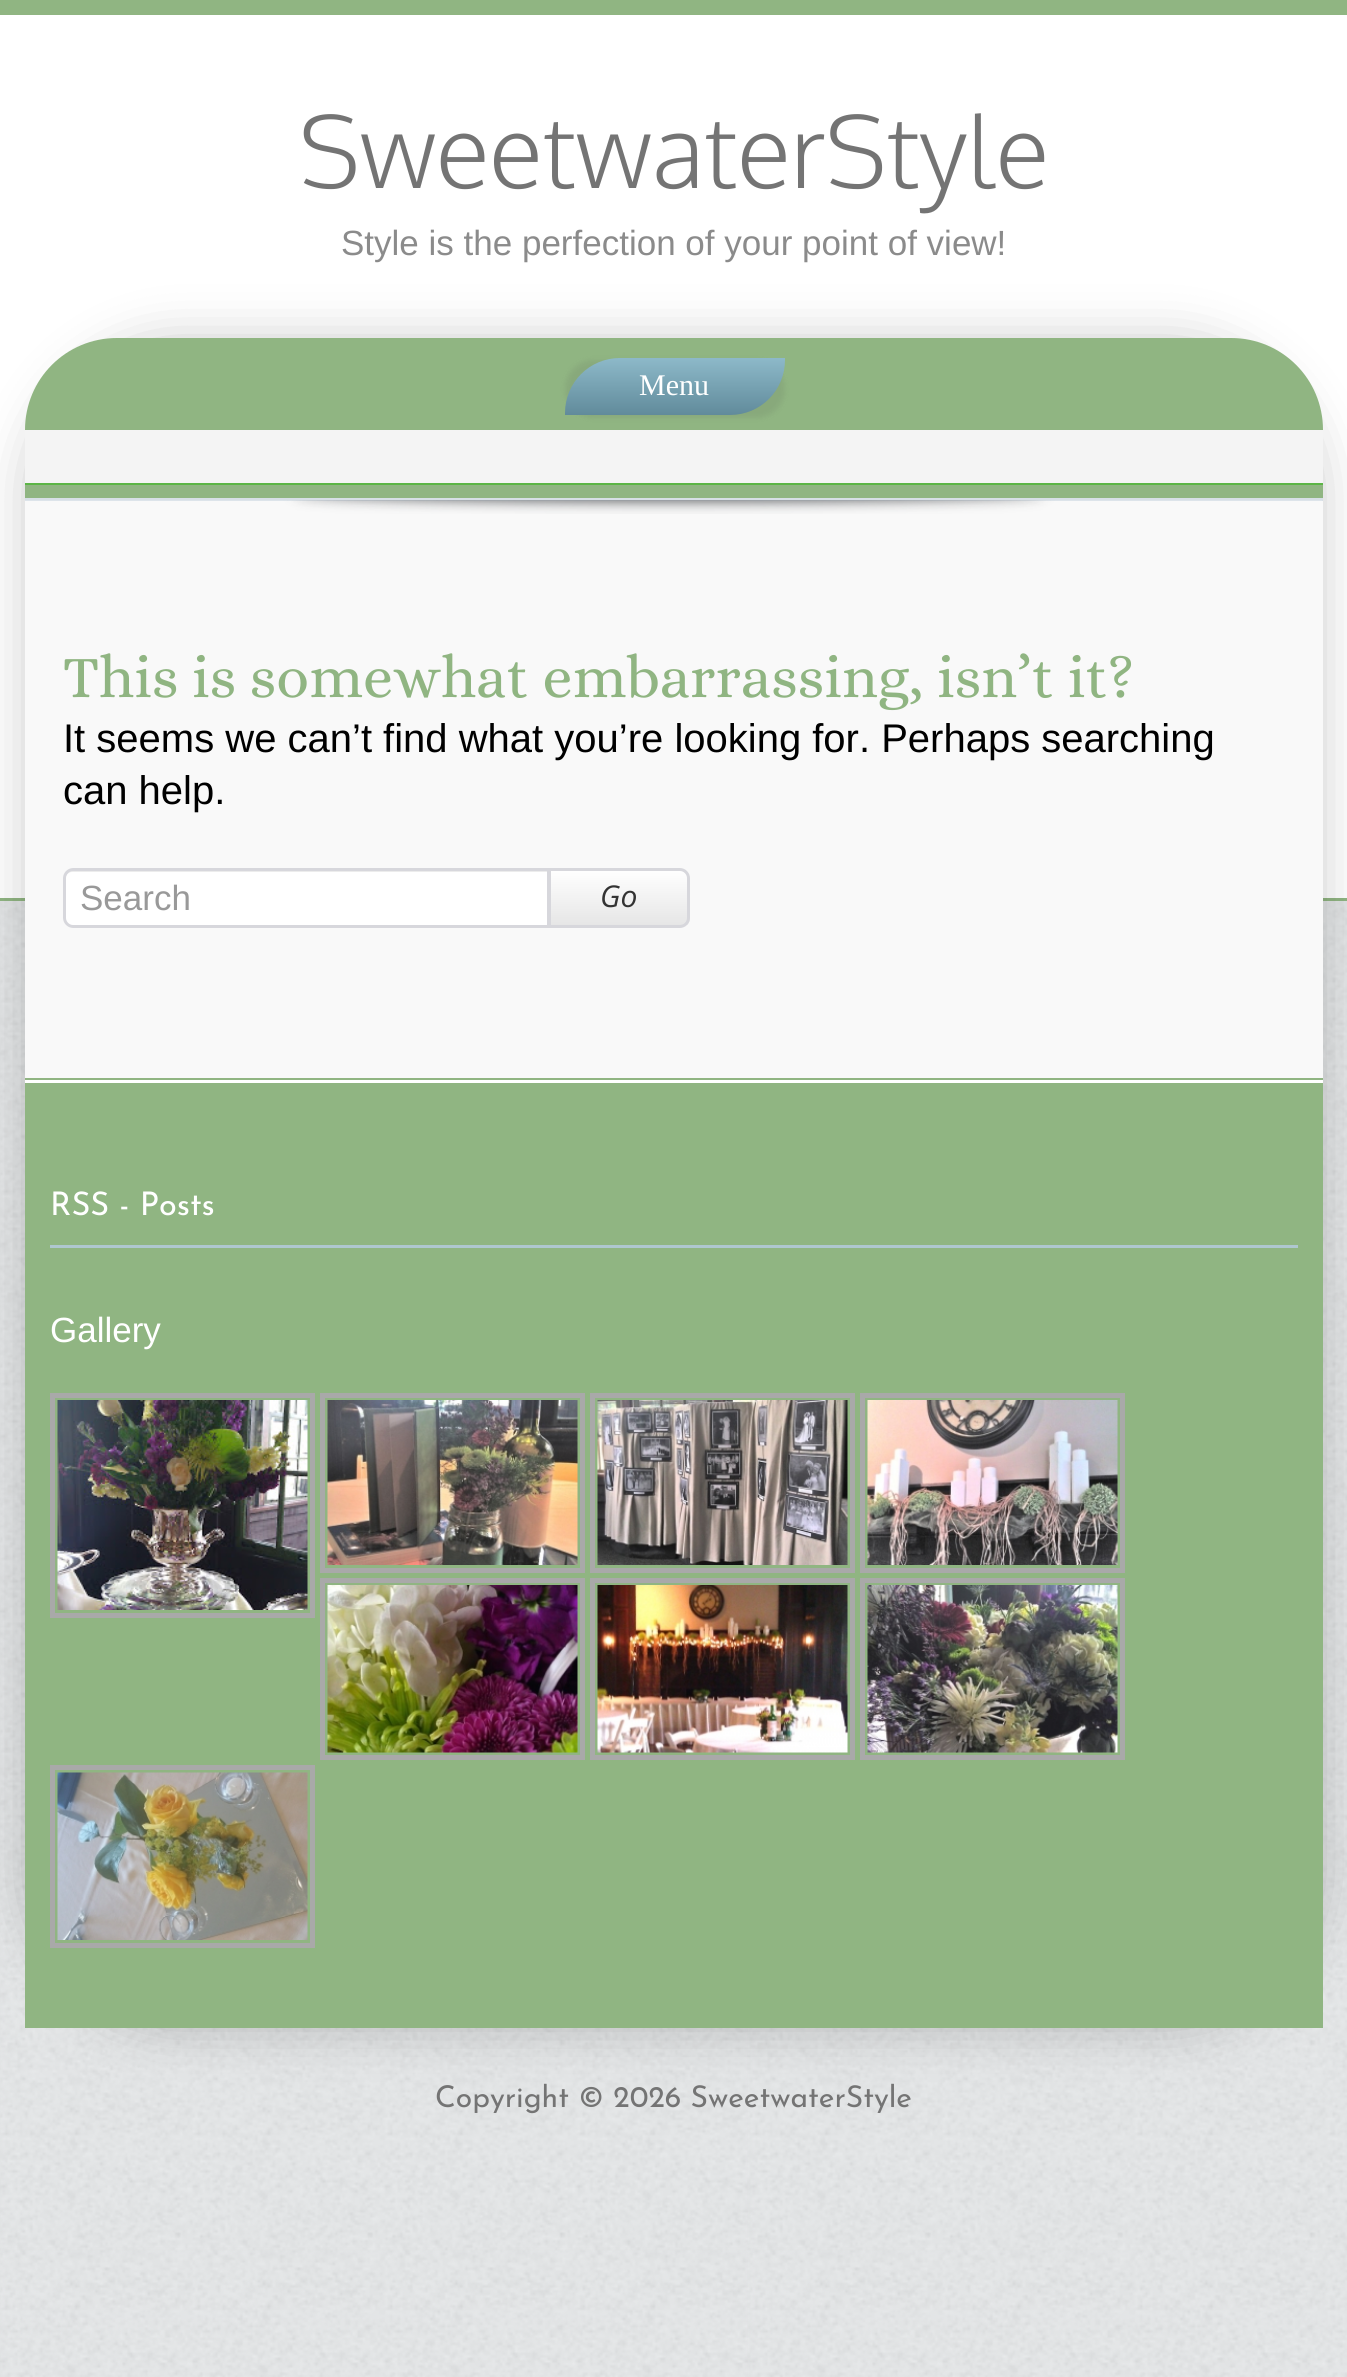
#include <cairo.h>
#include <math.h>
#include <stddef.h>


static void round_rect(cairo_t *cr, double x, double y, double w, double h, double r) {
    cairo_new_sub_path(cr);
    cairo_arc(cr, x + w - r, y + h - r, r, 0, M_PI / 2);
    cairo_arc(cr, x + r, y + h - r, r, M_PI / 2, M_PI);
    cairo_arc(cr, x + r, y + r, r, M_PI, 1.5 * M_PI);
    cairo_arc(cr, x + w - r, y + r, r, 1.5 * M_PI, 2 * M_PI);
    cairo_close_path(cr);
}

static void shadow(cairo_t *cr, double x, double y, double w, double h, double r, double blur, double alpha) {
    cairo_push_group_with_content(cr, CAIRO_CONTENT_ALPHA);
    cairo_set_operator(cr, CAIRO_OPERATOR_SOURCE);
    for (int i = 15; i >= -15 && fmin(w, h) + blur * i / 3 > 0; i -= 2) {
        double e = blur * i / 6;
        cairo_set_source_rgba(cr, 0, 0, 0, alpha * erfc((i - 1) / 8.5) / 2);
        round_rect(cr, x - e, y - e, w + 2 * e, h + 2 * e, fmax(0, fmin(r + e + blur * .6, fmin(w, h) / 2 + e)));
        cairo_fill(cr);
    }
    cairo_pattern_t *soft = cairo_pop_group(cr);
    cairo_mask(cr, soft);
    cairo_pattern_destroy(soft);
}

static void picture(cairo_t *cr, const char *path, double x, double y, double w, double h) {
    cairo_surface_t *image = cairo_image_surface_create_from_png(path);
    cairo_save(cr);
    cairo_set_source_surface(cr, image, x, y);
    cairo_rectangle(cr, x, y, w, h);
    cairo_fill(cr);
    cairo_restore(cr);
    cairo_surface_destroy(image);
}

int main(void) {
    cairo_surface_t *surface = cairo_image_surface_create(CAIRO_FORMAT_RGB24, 1347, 2377);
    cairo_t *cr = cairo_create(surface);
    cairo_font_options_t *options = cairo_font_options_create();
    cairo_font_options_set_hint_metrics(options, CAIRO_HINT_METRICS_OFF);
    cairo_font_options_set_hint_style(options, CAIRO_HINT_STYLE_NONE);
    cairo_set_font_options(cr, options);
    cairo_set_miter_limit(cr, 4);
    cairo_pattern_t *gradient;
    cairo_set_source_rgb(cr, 0.855, 0.867, 0.875);
    cairo_paint(cr);
    picture(cr, "img1.png", 0, 901, 1347, 1476);
    cairo_set_source_rgb(cr, 1, 1, 1);
    cairo_rectangle(cr, 0, 15, 1347, 883);
    cairo_fill(cr);
    cairo_set_source_rgb(cr, 0.565, 0.71, 0.51);
    cairo_rectangle(cr, 0, 0, 1347, 15);
    cairo_fill(cr);
    cairo_rectangle(cr, 0, 898, 1347, 3);
    cairo_fill(cr);
    cairo_select_font_face(cr, "Oxygen Light", CAIRO_FONT_SLANT_NORMAL, CAIRO_FONT_WEIGHT_NORMAL);
    cairo_set_font_size(cr, 100);
    cairo_set_source_rgb(cr, 0.455, 0.455, 0.455);
    cairo_move_to(cr, 299, 188);
    cairo_show_text(cr, "SweetwaterStyle");
    cairo_set_source_rgb(cr, 0, 0, 0);
    shadow(cr, 25, 338, 1298, 1690, 150, 25, 0.2);
    cairo_select_font_face(cr, "Liberation Sans", CAIRO_FONT_SLANT_NORMAL, CAIRO_FONT_WEIGHT_NORMAL);
    cairo_set_font_size(cr, 35);
    cairo_set_source_rgb(cr, 0.545, 0.545, 0.545);
    cairo_move_to(cr, 341, 255);
    cairo_show_text(cr, "Style is the perfection of your point of view!");
    cairo_set_source_rgb(cr, 0.973, 0.973, 0.973);
    cairo_new_path(cr);
    cairo_move_to(cr, 175, 338);
    cairo_line_to(cr, 1173, 338);
    cairo_curve_to(cr, 1256, 338, 1323, 405, 1323, 488);
    cairo_line_to(cr, 1323, 2028);
    cairo_line_to(cr, 25, 2028);
    cairo_line_to(cr, 25, 488);
    cairo_curve_to(cr, 25, 405, 92, 338, 175, 338);
    cairo_close_path(cr);
    cairo_fill(cr);
    cairo_set_source_rgb(cr, 0.565, 0.71, 0.51);
    cairo_rectangle(cr, 25, 1083, 1298, 945);
    cairo_fill(cr);
    cairo_new_path(cr);
    cairo_move_to(cr, 117, 338);
    cairo_line_to(cr, 1231, 338);
    cairo_curve_to(cr, 1282, 338, 1323, 379, 1323, 430);
    cairo_line_to(cr, 25, 430);
    cairo_curve_to(cr, 25, 379, 66, 338, 117, 338);
    cairo_close_path(cr);
    cairo_fill(cr);
    cairo_set_source_rgb(cr, 0.251, 0.251, 0.251);
    shadow(cr, 565, 360, 220, 58, 55, 2.5, 0.1);
    gradient = cairo_pattern_create_linear(675, 358, 675, 415);
    cairo_pattern_add_color_stop_rgba(gradient, 0, 0.553, 0.725, 0.788, 1);
    cairo_pattern_add_color_stop_rgba(gradient, 1, 0.38, 0.545, 0.608, 1);
    cairo_set_source(cr, gradient);
    cairo_pattern_destroy(gradient);
    cairo_new_path(cr);
    cairo_move_to(cr, 620, 358);
    cairo_line_to(cr, 785, 358);
    cairo_line_to(cr, 785, 360);
    cairo_curve_to(cr, 785, 390.5, 760.5, 415, 730, 415);
    cairo_line_to(cr, 565, 415);
    cairo_line_to(cr, 565, 413);
    cairo_curve_to(cr, 565, 382.5, 589.5, 358, 620, 358);
    cairo_close_path(cr);
    cairo_fill(cr);
    cairo_select_font_face(cr, "Liberation Serif", CAIRO_FONT_SLANT_NORMAL, CAIRO_FONT_WEIGHT_NORMAL);
    cairo_set_font_size(cr, 30);
    cairo_set_source_rgb(cr, 1, 1, 1);
    cairo_move_to(cr, 639, 395);
    cairo_show_text(cr, "Menu");
    cairo_set_source_rgb(cr, 0.957, 0.957, 0.957);
    cairo_rectangle(cr, 25, 430, 1298, 53);
    cairo_fill(cr);
    cairo_set_source_rgb(cr, 0.361, 0.71, 0.275);
    cairo_rectangle(cr, 25, 483, 1298, 2);
    cairo_fill(cr);
    cairo_set_source_rgb(cr, 0.565, 0.71, 0.51);
    cairo_rectangle(cr, 25, 485, 1298, 13);
    cairo_fill(cr);
    cairo_set_source_rgb(cr, 0.843, 0.875, 0.902);
    cairo_rectangle(cr, 25, 498, 1298, 3);
    cairo_fill(cr);
    picture(cr, "img2.png", 25, 500, 1297, 14);
    cairo_set_source_rgb(cr, 0.565, 0.71, 0.51);
    cairo_rectangle(cr, 25, 1078, 1298, 2);
    cairo_fill(cr);
    cairo_select_font_face(cr, "Alice", CAIRO_FONT_SLANT_NORMAL, CAIRO_FONT_WEIGHT_NORMAL);
    cairo_set_font_size(cr, 60);
    cairo_move_to(cr, 63, 697);
    cairo_show_text(cr, "This is somewhat embarrassing, isn’t it?");
    cairo_select_font_face(cr, "Liberation Sans", CAIRO_FONT_SLANT_NORMAL, CAIRO_FONT_WEIGHT_NORMAL);
    cairo_set_font_size(cr, 40);
    cairo_set_source_rgb(cr, 0, 0, 0);
    cairo_move_to(cr, 63, 752);
    cairo_show_text(cr, "It seems we can’t find what you’re looking for. Perhaps searching");
    cairo_move_to(cr, 63, 804);
    cairo_show_text(cr, "can help.");
    cairo_save(cr);
    cairo_new_path(cr);
    cairo_move_to(cr, 548, 868);
    cairo_line_to(cr, 680, 868);
    cairo_curve_to(cr, 685.5, 868, 690, 872.5, 690, 878);
    cairo_line_to(cr, 690, 918);
    cairo_curve_to(cr, 690, 923.5, 685.5, 928, 680, 928);
    cairo_line_to(cr, 548, 928);
    cairo_close_path(cr);
    cairo_clip(cr);
    gradient = cairo_pattern_create_linear(619, 870, 619, 925);
    cairo_pattern_add_color_stop_rgba(gradient, 0, 1, 1, 1, 1);
    cairo_pattern_add_color_stop_rgba(gradient, 1, 0.902, 0.902, 0.902, 1);
    cairo_set_source(cr, gradient);
    cairo_pattern_destroy(gradient);
    cairo_rectangle(cr, 551, 870, 139, 55);
    cairo_fill(cr);
    cairo_restore(cr);
    cairo_new_path(cr);
    cairo_move_to(cr, 549.5, 869.5);
    cairo_line_to(cr, 680, 869.5);
    cairo_curve_to(cr, 684.5, 869.5, 688.5, 873.5, 688.5, 878);
    cairo_line_to(cr, 688.5, 918);
    cairo_curve_to(cr, 688.5, 922.5, 684.5, 926.5, 680, 926.5);
    cairo_line_to(cr, 549.5, 926.5);
    cairo_close_path(cr);
    cairo_set_source_rgb(cr, 0.843, 0.843, 0.863);
    cairo_set_line_width(cr, 3);
    cairo_stroke(cr);
    cairo_set_source_rgb(cr, 1, 1, 1);
    cairo_new_path(cr);
    cairo_move_to(cr, 73, 868);
    cairo_line_to(cr, 550, 868);
    cairo_line_to(cr, 550, 928);
    cairo_line_to(cr, 73, 928);
    cairo_curve_to(cr, 67.5, 928, 63, 923.5, 63, 918);
    cairo_line_to(cr, 63, 878);
    cairo_curve_to(cr, 63, 872.5, 67.5, 868, 73, 868);
    cairo_close_path(cr);
    cairo_fill(cr);
    cairo_set_source_rgb(cr, 0.925, 0.925, 0.925);
    cairo_new_path(cr);
    cairo_move_to(cr, 72, 872);
    cairo_line_to(cr, 548, 872);
    cairo_line_to(cr, 548, 870);
    cairo_line_to(cr, 73, 870);
    cairo_curve_to(cr, 67, 870, 65, 875, 65, 880);
    cairo_curve_to(cr, 65, 876, 68, 872, 72, 872);
    cairo_close_path(cr);
    cairo_fill(cr);
    cairo_new_path(cr);
    cairo_move_to(cr, 73, 869.5);
    cairo_line_to(cr, 548.5, 869.5);
    cairo_line_to(cr, 548.5, 926.5);
    cairo_line_to(cr, 73, 926.5);
    cairo_curve_to(cr, 68.5, 926.5, 64.5, 922.5, 64.5, 918);
    cairo_line_to(cr, 64.5, 878);
    cairo_curve_to(cr, 64.5, 873.5, 68.5, 869.5, 73, 869.5);
    cairo_close_path(cr);
    cairo_set_source_rgb(cr, 0.843, 0.843, 0.863);
    cairo_stroke(cr);
    cairo_set_font_size(cr, 35);
    cairo_set_source_rgb(cr, 0.6, 0.6, 0.6);
    cairo_move_to(cr, 80, 910);
    cairo_show_text(cr, "Search");
    cairo_select_font_face(cr, "Open Sans", CAIRO_FONT_SLANT_ITALIC, CAIRO_FONT_WEIGHT_NORMAL);
    cairo_set_font_size(cr, 30);
    cairo_set_source_rgb(cr, 0.2, 0.2, 0.2);
    cairo_move_to(cr, 600, 907);
    cairo_show_text(cr, "Go");
    cairo_set_source_rgb(cr, 1, 1, 1);
    cairo_rectangle(cr, 25, 1080, 1298, 3);
    cairo_fill(cr);
    cairo_set_source_rgb(cr, 0.686, 0.78, 0.812);
    cairo_rectangle(cr, 50, 1245, 1248, 3);
    cairo_fill(cr);
    cairo_select_font_face(cr, "Josefin Sans Thin", CAIRO_FONT_SLANT_NORMAL, CAIRO_FONT_WEIGHT_NORMAL);
    cairo_set_font_size(cr, 32.5);
    cairo_set_source_rgb(cr, 1, 1, 1);
    cairo_move_to(cr, 50, 1215);
    cairo_show_text(cr, "RSS - Posts");
    cairo_select_font_face(cr, "Liberation Sans", CAIRO_FONT_SLANT_NORMAL, CAIRO_FONT_WEIGHT_NORMAL);
    cairo_set_font_size(cr, 35);
    cairo_move_to(cr, 50, 1342);
    cairo_show_text(cr, "Gallery");
    cairo_rectangle(cr, 52.5, 1395.5, 260, 220);
    cairo_set_source_rgb(cr, 0.663, 0.663, 0.663);
    cairo_set_line_width(cr, 5);
    cairo_stroke(cr);
    picture(cr, "img3.png", 57, 1400, 251, 210);
    cairo_rectangle(cr, 322.5, 1395.5, 260, 175);
    cairo_stroke(cr);
    picture(cr, "img4.png", 327, 1400, 251, 165);
    cairo_rectangle(cr, 592.5, 1395.5, 260, 175);
    cairo_stroke(cr);
    picture(cr, "img5.png", 597, 1400, 251, 165);
    cairo_rectangle(cr, 862.5, 1395.5, 260, 175);
    cairo_stroke(cr);
    picture(cr, "img6.png", 867, 1400, 251, 165);
    cairo_rectangle(cr, 322.5, 1580.5, 260, 177);
    cairo_stroke(cr);
    picture(cr, "img7.png", 327, 1585, 251, 168);
    cairo_rectangle(cr, 592.5, 1580.5, 260, 177);
    cairo_stroke(cr);
    picture(cr, "img8.png", 597, 1585, 251, 168);
    cairo_rectangle(cr, 862.5, 1580.5, 260, 177);
    cairo_stroke(cr);
    picture(cr, "img9.png", 867, 1585, 251, 168);
    cairo_rectangle(cr, 52.5, 1767.5, 260, 178);
    cairo_stroke(cr);
    picture(cr, "img10.png", 57, 1772, 251, 168);
    cairo_select_font_face(cr, "Josefin Sans Thin", CAIRO_FONT_SLANT_NORMAL, CAIRO_FONT_WEIGHT_NORMAL);
    cairo_set_font_size(cr, 30);
    cairo_set_source_rgb(cr, 0.455, 0.455, 0.455);
    cairo_move_to(cr, 435, 2107);
    cairo_show_text(cr, "Copyright © 2026 SweetwaterStyle");
    cairo_surface_write_to_png(surface, "page.png");
    cairo_font_options_destroy(options);
    cairo_destroy(cr);
    cairo_surface_destroy(surface);
    return 0;
}
